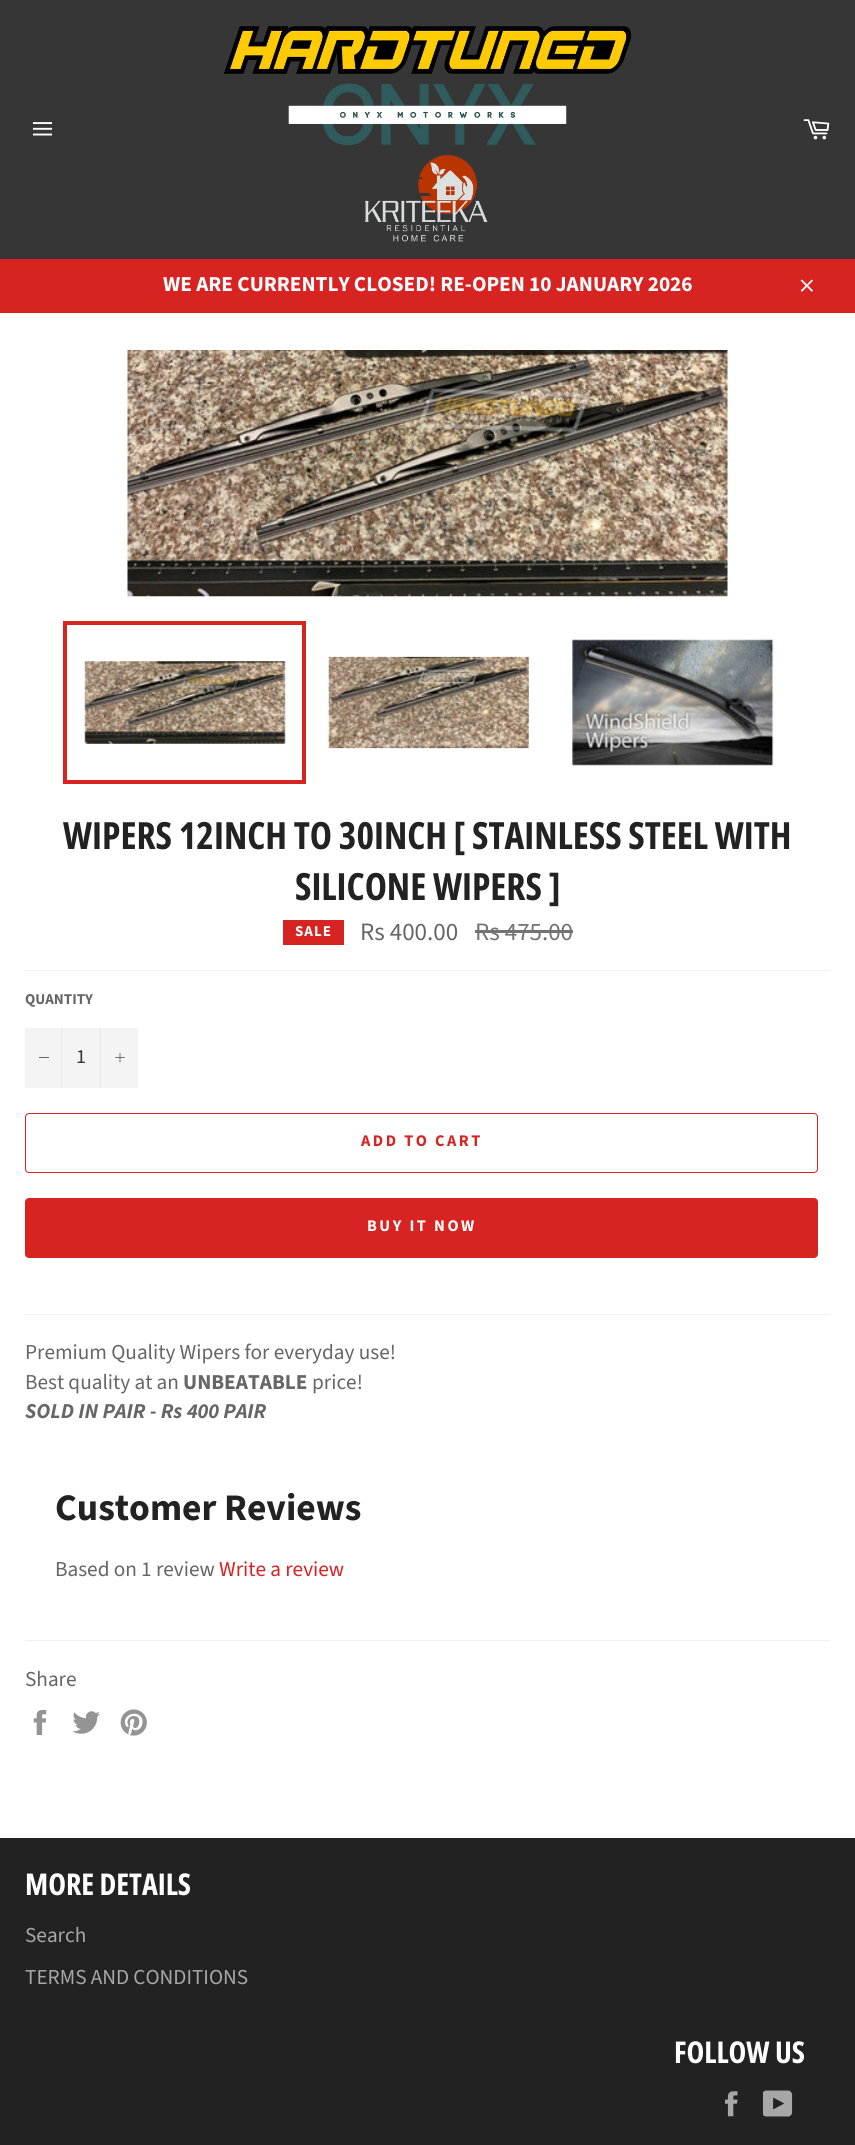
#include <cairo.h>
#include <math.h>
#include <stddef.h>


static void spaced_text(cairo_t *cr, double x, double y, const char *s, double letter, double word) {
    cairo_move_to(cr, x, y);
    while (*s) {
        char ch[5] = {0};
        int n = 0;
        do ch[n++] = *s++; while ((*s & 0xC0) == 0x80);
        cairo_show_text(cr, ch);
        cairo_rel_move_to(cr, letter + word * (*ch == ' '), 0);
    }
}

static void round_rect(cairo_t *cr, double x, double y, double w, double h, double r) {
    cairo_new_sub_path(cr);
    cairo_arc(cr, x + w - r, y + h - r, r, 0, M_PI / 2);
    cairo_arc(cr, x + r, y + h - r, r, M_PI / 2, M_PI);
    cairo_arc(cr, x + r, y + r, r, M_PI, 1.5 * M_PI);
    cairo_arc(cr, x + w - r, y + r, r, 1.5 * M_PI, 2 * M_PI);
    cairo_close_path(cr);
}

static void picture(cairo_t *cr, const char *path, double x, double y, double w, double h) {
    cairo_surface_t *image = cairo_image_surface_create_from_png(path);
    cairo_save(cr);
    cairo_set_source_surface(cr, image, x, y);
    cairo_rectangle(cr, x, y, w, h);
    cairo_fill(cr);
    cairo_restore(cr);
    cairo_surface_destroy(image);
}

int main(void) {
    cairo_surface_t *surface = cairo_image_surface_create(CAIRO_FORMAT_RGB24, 855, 2145);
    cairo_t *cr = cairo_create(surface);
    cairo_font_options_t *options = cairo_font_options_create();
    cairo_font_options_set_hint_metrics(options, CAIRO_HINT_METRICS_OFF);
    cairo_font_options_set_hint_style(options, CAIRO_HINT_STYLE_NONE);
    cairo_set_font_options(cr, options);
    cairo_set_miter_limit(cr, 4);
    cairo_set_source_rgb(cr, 0.212, 0.212, 0.212);
    cairo_paint(cr);
    picture(cr, "img1.png", 32, 122, 21, 14);
    picture(cr, "img2.png", 224, 26, 408, 216);
    picture(cr, "img3.png", 803, 119, 27, 21);
    cairo_set_source_rgb(cr, 0.847, 0.137, 0.137);
    cairo_rectangle(cr, 0, 259, 855, 54);
    cairo_fill(cr);
    cairo_select_font_face(cr, "Source Sans Pro", CAIRO_FONT_SLANT_NORMAL, CAIRO_FONT_WEIGHT_BOLD);
    cairo_set_font_size(cr, 21.25);
    cairo_set_source_rgb(cr, 1, 1, 1);
    cairo_move_to(cr, 163, 291);
    cairo_show_text(cr, "WE ARE CURRENTLY CLOSED! RE-OPEN 10 JANUARY 2026");
    picture(cr, "img4.png", 800, 279, 13, 13);
    cairo_rectangle(cr, 0, 313, 855, 1525);
    cairo_fill(cr);
    picture(cr, "img5.png", 127, 350, 601, 247);
    picture(cr, "img6.png", 84, 661, 202, 83);
    cairo_rectangle(cr, 65, 623, 239, 159);
    cairo_set_source_rgb(cr, 0.847, 0.137, 0.137);
    cairo_set_line_width(cr, 4);
    cairo_stroke(cr);
    picture(cr, "img7.png", 328, 656, 201, 93);
    picture(cr, "img8.png", 572, 639, 202, 127);
    cairo_select_font_face(cr, "Open Sans Condensed", CAIRO_FONT_SLANT_NORMAL, CAIRO_FONT_WEIGHT_BOLD);
    cairo_set_font_size(cr, 37.5);
    cairo_set_source_rgb(cr, 0.133, 0.133, 0.133);
    cairo_move_to(cr, 63, 849);
    cairo_show_text(cr, "WIPERS 12INCH TO 30INCH [ STAINLESS STEEL WITH");
    cairo_move_to(cr, 295, 900);
    cairo_show_text(cr, "SILICONE WIPERS ]");
    cairo_set_source_rgb(cr, 0.847, 0.137, 0.137);
    cairo_rectangle(cr, 283, 920, 61, 25);
    cairo_fill(cr);
    cairo_select_font_face(cr, "Source Sans Pro", CAIRO_FONT_SLANT_NORMAL, CAIRO_FONT_WEIGHT_BOLD);
    cairo_set_font_size(cr, 15);
    cairo_set_source_rgb(cr, 1, 1, 1);
    spaced_text(cr, 295, 936, "SALE", 1, 0);
    cairo_select_font_face(cr, "Source Sans Pro", CAIRO_FONT_SLANT_NORMAL, CAIRO_FONT_WEIGHT_NORMAL);
    cairo_set_font_size(cr, 25);
    cairo_set_source_rgb(cr, 0.4, 0.4, 0.4);
    cairo_move_to(cr, 360, 940);
    cairo_show_text(cr, "Rs 400.00");
    cairo_set_source_rgb(cr, 0.451, 0.451, 0.451);
    cairo_move_to(cr, 475, 940);
    cairo_show_text(cr, "Rs 475.00");
    cairo_rectangle(cr, 475, 930, 98, 3);
    cairo_fill(cr);
    cairo_set_source_rgb(cr, 0.941, 0.941, 0.941);
    cairo_rectangle(cr, 25, 970, 805, 1);
    cairo_fill(cr);
    cairo_select_font_face(cr, "Source Sans Pro", CAIRO_FONT_SLANT_NORMAL, CAIRO_FONT_WEIGHT_BOLD);
    cairo_set_font_size(cr, 15);
    cairo_set_source_rgb(cr, 0.4, 0.4, 0.4);
    cairo_move_to(cr, 25, 1004);
    cairo_show_text(cr, "QUANTITY");
    cairo_set_source_rgb(cr, 0.957, 0.957, 0.957);
    cairo_rectangle(cr, 25, 1028, 113, 60);
    cairo_fill(cr);
    cairo_set_source_rgb(cr, 0.906, 0.906, 0.906);
    cairo_rectangle(cr, 61, 1028, 1, 60);
    cairo_fill(cr);
    cairo_set_source_rgb(cr, 0.4, 0.4, 0.4);
    cairo_rectangle(cr, 39, 1057, 10, 1);
    cairo_fill(cr);
    cairo_select_font_face(cr, "Source Sans Pro", CAIRO_FONT_SLANT_NORMAL, CAIRO_FONT_WEIGHT_NORMAL);
    cairo_set_font_size(cr, 20);
    cairo_set_source_rgb(cr, 0.2, 0.2, 0.2);
    cairo_move_to(cr, 76, 1063);
    cairo_show_text(cr, "1");
    cairo_set_source_rgb(cr, 0.906, 0.906, 0.906);
    cairo_rectangle(cr, 100, 1028, 1, 60);
    cairo_fill(cr);
    picture(cr, "img9.png", 115, 1053, 10, 10);
    round_rect(cr, 25.5, 1113.5, 792, 59, 3.5);
    cairo_set_source_rgb(cr, 0.847, 0.137, 0.137);
    cairo_set_line_width(cr, 1);
    cairo_stroke(cr);
    cairo_select_font_face(cr, "Source Sans Pro", CAIRO_FONT_SLANT_NORMAL, CAIRO_FONT_WEIGHT_BOLD);
    cairo_set_font_size(cr, 16.25);
    spaced_text(cr, 361, 1146, "ADD TO CART", 2.5, 0);
    round_rect(cr, 25, 1198, 793, 60, 4);
    cairo_fill(cr);
    cairo_set_source_rgb(cr, 1, 1, 1);
    spaced_text(cr, 367, 1231, "BUY IT NOW", 2.5, 0);
    cairo_set_source_rgb(cr, 0.941, 0.941, 0.941);
    cairo_rectangle(cr, 25, 1314, 805, 1);
    cairo_fill(cr);
    cairo_select_font_face(cr, "Source Sans Pro", CAIRO_FONT_SLANT_NORMAL, CAIRO_FONT_WEIGHT_NORMAL);
    cairo_set_font_size(cr, 21.25);
    cairo_set_source_rgb(cr, 0.4, 0.4, 0.4);
    cairo_move_to(cr, 25, 1359);
    cairo_show_text(cr, "Premium Quality Wipers for everyday use!");
    cairo_move_to(cr, 25, 1389);
    cairo_show_text(cr, "Best quality at an");
    cairo_select_font_face(cr, "Source Sans Pro", CAIRO_FONT_SLANT_NORMAL, CAIRO_FONT_WEIGHT_BOLD);
    cairo_move_to(cr, 183, 1389);
    cairo_show_text(cr, "UNBEATABLE");
    cairo_select_font_face(cr, "Source Sans Pro", CAIRO_FONT_SLANT_NORMAL, CAIRO_FONT_WEIGHT_NORMAL);
    cairo_move_to(cr, 312, 1389);
    cairo_show_text(cr, "price!");
    cairo_select_font_face(cr, "Source Sans Pro", CAIRO_FONT_SLANT_ITALIC, CAIRO_FONT_WEIGHT_BOLD);
    cairo_move_to(cr, 25, 1418);
    cairo_show_text(cr, "SOLD IN PAIR - Rs 400 PAIR");
    cairo_select_font_face(cr, "Source Sans Pro", CAIRO_FONT_SLANT_NORMAL, CAIRO_FONT_WEIGHT_BOLD);
    cairo_set_font_size(cr, 37.5);
    cairo_set_source_rgb(cr, 0.133, 0.133, 0.133);
    cairo_move_to(cr, 55, 1520);
    cairo_show_text(cr, "Customer Reviews");
    cairo_select_font_face(cr, "Source Sans Pro", CAIRO_FONT_SLANT_NORMAL, CAIRO_FONT_WEIGHT_NORMAL);
    cairo_set_font_size(cr, 21.25);
    cairo_set_source_rgb(cr, 0.4, 0.4, 0.4);
    cairo_move_to(cr, 55, 1576);
    cairo_show_text(cr, "Based on 1 review");
    cairo_set_source_rgb(cr, 0.847, 0.137, 0.137);
    cairo_move_to(cr, 219, 1576);
    cairo_show_text(cr, "Write a review");
    cairo_set_source_rgb(cr, 0.941, 0.941, 0.941);
    cairo_rectangle(cr, 25, 1640, 805, 1);
    cairo_fill(cr);
    cairo_set_source_rgb(cr, 0.4, 0.4, 0.4);
    cairo_move_to(cr, 25, 1686);
    cairo_show_text(cr, "Share");
    picture(cr, "img10.png", 33, 1710, 14, 25);
    picture(cr, "img11.png", 72, 1711, 28, 23);
    picture(cr, "img12.png", 120, 1709, 27, 27);
    cairo_set_source_rgb(cr, 0.133, 0.133, 0.133);
    cairo_rectangle(cr, 0, 1838, 855, 307);
    cairo_fill(cr);
    cairo_select_font_face(cr, "Open Sans Condensed", CAIRO_FONT_SLANT_NORMAL, CAIRO_FONT_WEIGHT_BOLD);
    cairo_set_font_size(cr, 30);
    cairo_set_source_rgb(cr, 1, 1, 1);
    cairo_move_to(cr, 25, 1895);
    cairo_show_text(cr, "MORE DETAILS");
    cairo_select_font_face(cr, "Source Sans Pro", CAIRO_FONT_SLANT_NORMAL, CAIRO_FONT_WEIGHT_NORMAL);
    cairo_set_font_size(cr, 21.25);
    cairo_set_source_rgb(cr, 0.655, 0.655, 0.655);
    cairo_move_to(cr, 25, 1942);
    cairo_show_text(cr, "Search");
    cairo_move_to(cr, 25, 1984);
    cairo_show_text(cr, "TERMS AND CONDITIONS");
    cairo_select_font_face(cr, "Open Sans Condensed", CAIRO_FONT_SLANT_NORMAL, CAIRO_FONT_WEIGHT_BOLD);
    cairo_set_font_size(cr, 30);
    cairo_set_source_rgb(cr, 1, 1, 1);
    cairo_move_to(cr, 674, 2063);
    cairo_show_text(cr, "FOLLOW US");
    picture(cr, "img13.png", 725, 2091, 13, 26);
    picture(cr, "img14.png", 763, 2090, 30, 27);
    cairo_surface_write_to_png(surface, "page.png");
    cairo_font_options_destroy(options);
    cairo_destroy(cr);
    cairo_surface_destroy(surface);
    return 0;
}
